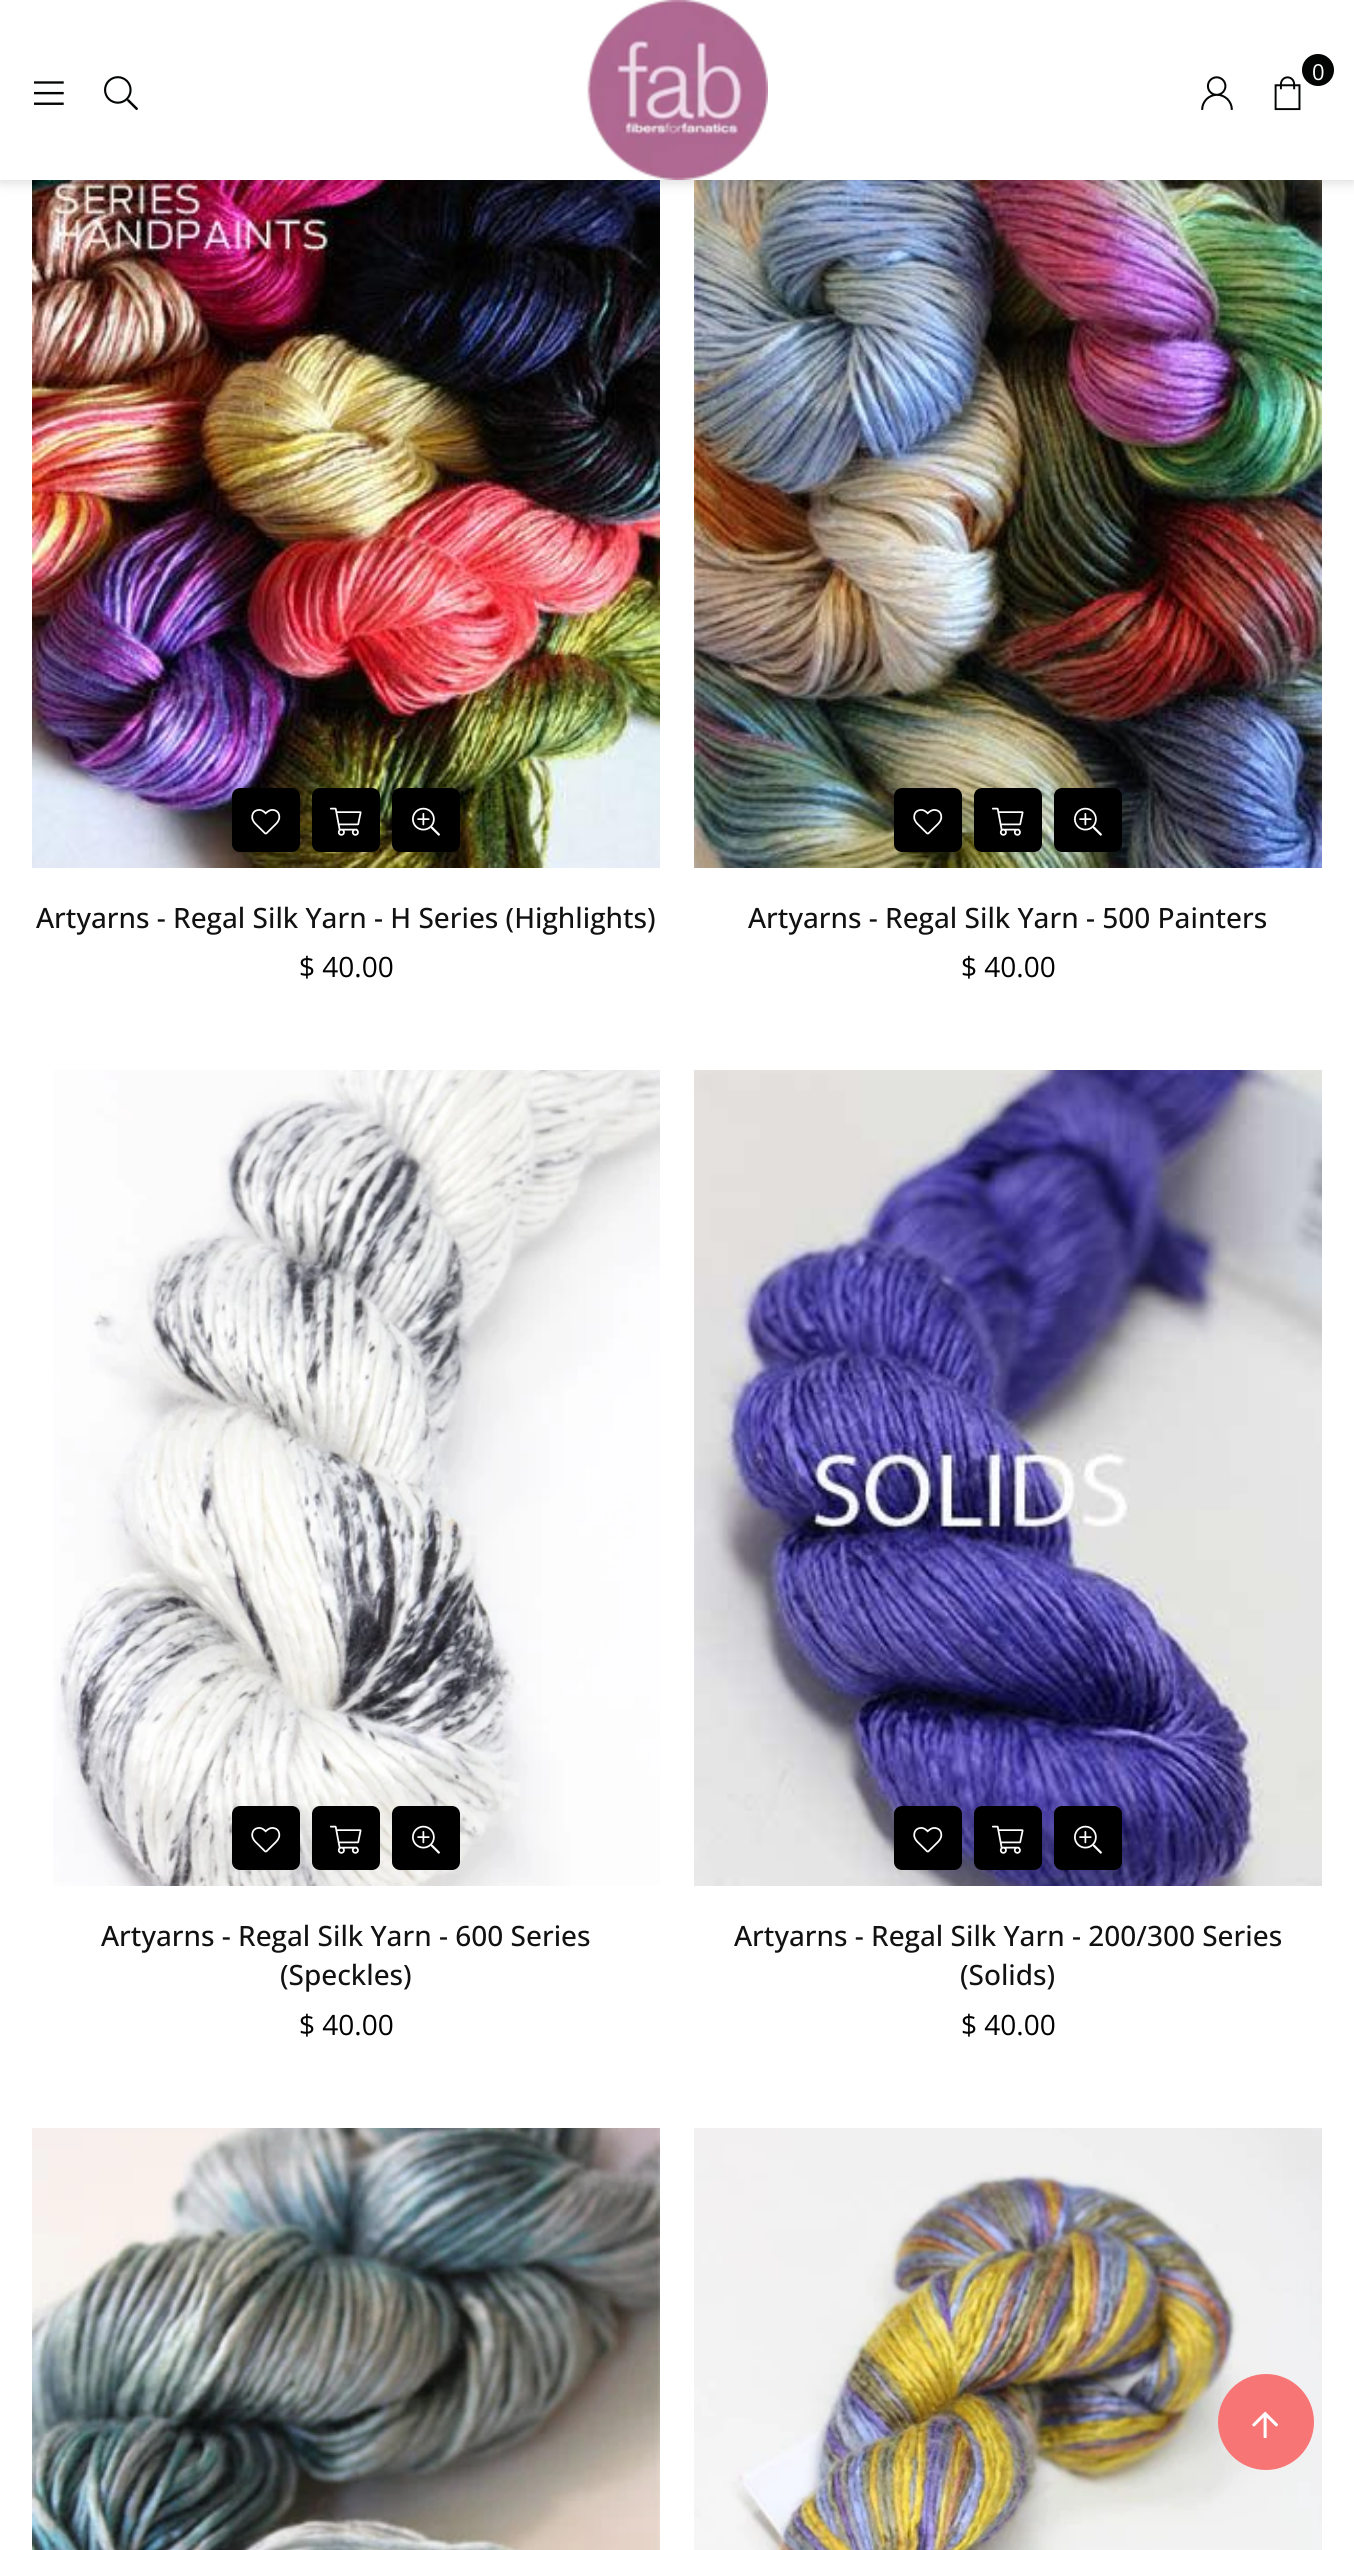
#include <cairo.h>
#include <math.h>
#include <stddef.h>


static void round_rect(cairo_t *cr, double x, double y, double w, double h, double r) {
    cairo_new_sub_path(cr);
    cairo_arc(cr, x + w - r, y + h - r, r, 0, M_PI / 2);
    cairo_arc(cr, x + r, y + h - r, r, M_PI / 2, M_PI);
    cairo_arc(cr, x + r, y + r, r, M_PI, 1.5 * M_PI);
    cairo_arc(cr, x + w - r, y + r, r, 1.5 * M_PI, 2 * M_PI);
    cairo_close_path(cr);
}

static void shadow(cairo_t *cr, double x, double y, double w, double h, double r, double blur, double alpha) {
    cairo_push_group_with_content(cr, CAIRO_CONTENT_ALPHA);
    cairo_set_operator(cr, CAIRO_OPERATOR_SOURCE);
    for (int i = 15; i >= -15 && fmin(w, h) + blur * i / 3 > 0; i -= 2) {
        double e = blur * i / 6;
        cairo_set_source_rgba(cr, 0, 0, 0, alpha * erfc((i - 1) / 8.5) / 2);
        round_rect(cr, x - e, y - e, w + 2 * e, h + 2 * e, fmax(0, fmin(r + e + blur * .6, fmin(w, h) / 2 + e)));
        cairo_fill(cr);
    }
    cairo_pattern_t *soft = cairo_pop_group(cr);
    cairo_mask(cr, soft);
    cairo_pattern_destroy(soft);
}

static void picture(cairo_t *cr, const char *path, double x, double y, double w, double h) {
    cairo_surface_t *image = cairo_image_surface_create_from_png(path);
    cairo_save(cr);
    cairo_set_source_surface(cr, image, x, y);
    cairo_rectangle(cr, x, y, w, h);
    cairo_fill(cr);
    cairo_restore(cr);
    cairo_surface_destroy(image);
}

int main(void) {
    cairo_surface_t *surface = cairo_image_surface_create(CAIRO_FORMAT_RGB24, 1354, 2550);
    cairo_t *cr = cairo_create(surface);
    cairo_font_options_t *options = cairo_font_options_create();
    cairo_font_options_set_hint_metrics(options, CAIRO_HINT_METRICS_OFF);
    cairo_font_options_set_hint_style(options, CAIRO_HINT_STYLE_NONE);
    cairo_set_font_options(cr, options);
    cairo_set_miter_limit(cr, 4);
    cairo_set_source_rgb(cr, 1, 1, 1);
    cairo_paint(cr);
    picture(cr, "img6.png", 32, 180, 628, 688);
    picture(cr, "img10.png", 694, 180, 628, 688);
    cairo_set_source_rgb(cr, 0, 0, 0);
    shadow(cr, 0, 0, 1354, 180, 0, 7, 0.2);
    cairo_set_source_rgb(cr, 1, 1, 1);
    cairo_rectangle(cr, 0, 0, 1354, 180);
    cairo_fill(cr);
    picture(cr, "img1.png", 587, 0, 181, 180);
    cairo_set_source_rgb(cr, 0.012, 0.02, 0.02);
    cairo_arc(cr, 1318, 70, 16, 0, 2 * M_PI);
    cairo_fill(cr);
    cairo_select_font_face(cr, "Open Sans", CAIRO_FONT_SLANT_NORMAL, CAIRO_FONT_WEIGHT_NORMAL);
    cairo_set_font_size(cr, 22);
    cairo_set_source_rgb(cr, 1, 1, 1);
    cairo_move_to(cr, 1312, 80);
    cairo_show_text(cr, "0");
    picture(cr, "img2.png", 1274, 76, 27, 35);
    picture(cr, "img3.png", 1201, 76, 32, 34);
    picture(cr, "img4.png", 34, 81, 30, 24);
    picture(cr, "img5.png", 104, 76, 34, 35);
    cairo_set_source_rgb(cr, 0, 0, 0);
    round_rect(cr, 232, 788, 68, 64, 8);
    cairo_fill(cr);
    picture(cr, "img7.png", 251, 809, 30, 26);
    round_rect(cr, 312, 788, 68, 64, 8);
    cairo_fill(cr);
    picture(cr, "img8.png", 330, 807, 32, 29);
    round_rect(cr, 392, 788, 68, 64, 8);
    cairo_fill(cr);
    picture(cr, "img9.png", 412, 807, 28, 29);
    cairo_select_font_face(cr, "Open Sans Medium", CAIRO_FONT_SLANT_NORMAL, CAIRO_FONT_WEIGHT_NORMAL);
    cairo_set_font_size(cr, 28);
    cairo_set_source_rgb(cr, 0.067, 0.067, 0.067);
    cairo_move_to(cr, 36, 928);
    cairo_show_text(cr, "Artyarns - Regal Silk Yarn - H Series (Highlights)");
    cairo_select_font_face(cr, "Open Sans", CAIRO_FONT_SLANT_NORMAL, CAIRO_FONT_WEIGHT_NORMAL);
    cairo_set_source_rgb(cr, 0, 0, 0);
    cairo_move_to(cr, 299, 977);
    cairo_show_text(cr, "$ 40.00");
    round_rect(cr, 894, 788, 68, 64, 8);
    cairo_fill(cr);
    picture(cr, "img7.png", 913, 809, 30, 26);
    round_rect(cr, 974, 788, 68, 64, 8);
    cairo_fill(cr);
    picture(cr, "img8.png", 992, 807, 32, 29);
    round_rect(cr, 1054, 788, 68, 64, 8);
    cairo_fill(cr);
    picture(cr, "img9.png", 1074, 807, 28, 29);
    cairo_select_font_face(cr, "Open Sans Medium", CAIRO_FONT_SLANT_NORMAL, CAIRO_FONT_WEIGHT_NORMAL);
    cairo_set_source_rgb(cr, 0.067, 0.067, 0.067);
    cairo_move_to(cr, 748, 928);
    cairo_show_text(cr, "Artyarns - Regal Silk Yarn - 500 Painters");
    cairo_select_font_face(cr, "Open Sans", CAIRO_FONT_SLANT_NORMAL, CAIRO_FONT_WEIGHT_NORMAL);
    cairo_set_source_rgb(cr, 0, 0, 0);
    cairo_move_to(cr, 961, 977);
    cairo_show_text(cr, "$ 40.00");
    picture(cr, "img11.png", 53, 1070, 607, 816);
    round_rect(cr, 232, 1806, 68, 64, 8);
    cairo_fill(cr);
    picture(cr, "img7.png", 251, 1827, 30, 26);
    round_rect(cr, 312, 1806, 68, 64, 8);
    cairo_fill(cr);
    picture(cr, "img8.png", 330, 1825, 32, 29);
    round_rect(cr, 392, 1806, 68, 64, 8);
    cairo_fill(cr);
    picture(cr, "img9.png", 412, 1825, 28, 29);
    cairo_select_font_face(cr, "Open Sans Medium", CAIRO_FONT_SLANT_NORMAL, CAIRO_FONT_WEIGHT_NORMAL);
    cairo_set_source_rgb(cr, 0.067, 0.067, 0.067);
    cairo_move_to(cr, 101, 1946);
    cairo_show_text(cr, "Artyarns - Regal Silk Yarn - 600 Series");
    cairo_move_to(cr, 280, 1985);
    cairo_show_text(cr, "(Speckles)");
    cairo_select_font_face(cr, "Open Sans", CAIRO_FONT_SLANT_NORMAL, CAIRO_FONT_WEIGHT_NORMAL);
    cairo_set_source_rgb(cr, 0, 0, 0);
    cairo_move_to(cr, 299, 2035);
    cairo_show_text(cr, "$ 40.00");
    picture(cr, "img12.png", 694, 1070, 628, 816);
    round_rect(cr, 894, 1806, 68, 64, 8);
    cairo_fill(cr);
    picture(cr, "img7.png", 913, 1827, 30, 26);
    round_rect(cr, 974, 1806, 68, 64, 8);
    cairo_fill(cr);
    picture(cr, "img8.png", 992, 1825, 32, 29);
    round_rect(cr, 1054, 1806, 68, 64, 8);
    cairo_fill(cr);
    picture(cr, "img9.png", 1074, 1825, 28, 29);
    cairo_select_font_face(cr, "Open Sans Medium", CAIRO_FONT_SLANT_NORMAL, CAIRO_FONT_WEIGHT_NORMAL);
    cairo_set_source_rgb(cr, 0.067, 0.067, 0.067);
    cairo_move_to(cr, 734, 1946);
    cairo_show_text(cr, "Artyarns - Regal Silk Yarn - 200/300 Series");
    cairo_move_to(cr, 960, 1985);
    cairo_show_text(cr, "(Solids)");
    cairo_select_font_face(cr, "Open Sans", CAIRO_FONT_SLANT_NORMAL, CAIRO_FONT_WEIGHT_NORMAL);
    cairo_set_source_rgb(cr, 0, 0, 0);
    cairo_move_to(cr, 961, 2035);
    cairo_show_text(cr, "$ 40.00");
    picture(cr, "img13.png", 32, 2128, 628, 422);
    picture(cr, "img14.png", 694, 2128, 628, 422);
    cairo_set_source_rgb(cr, 0.969, 0.459, 0.459);
    cairo_arc(cr, 1266, 2422, 48, 0, 2 * M_PI);
    cairo_fill(cr);
    picture(cr, "img15.png", 1252, 2411, 26, 27);
    cairo_surface_write_to_png(surface, "page.png");
    cairo_font_options_destroy(options);
    cairo_destroy(cr);
    cairo_surface_destroy(surface);
    return 0;
}
